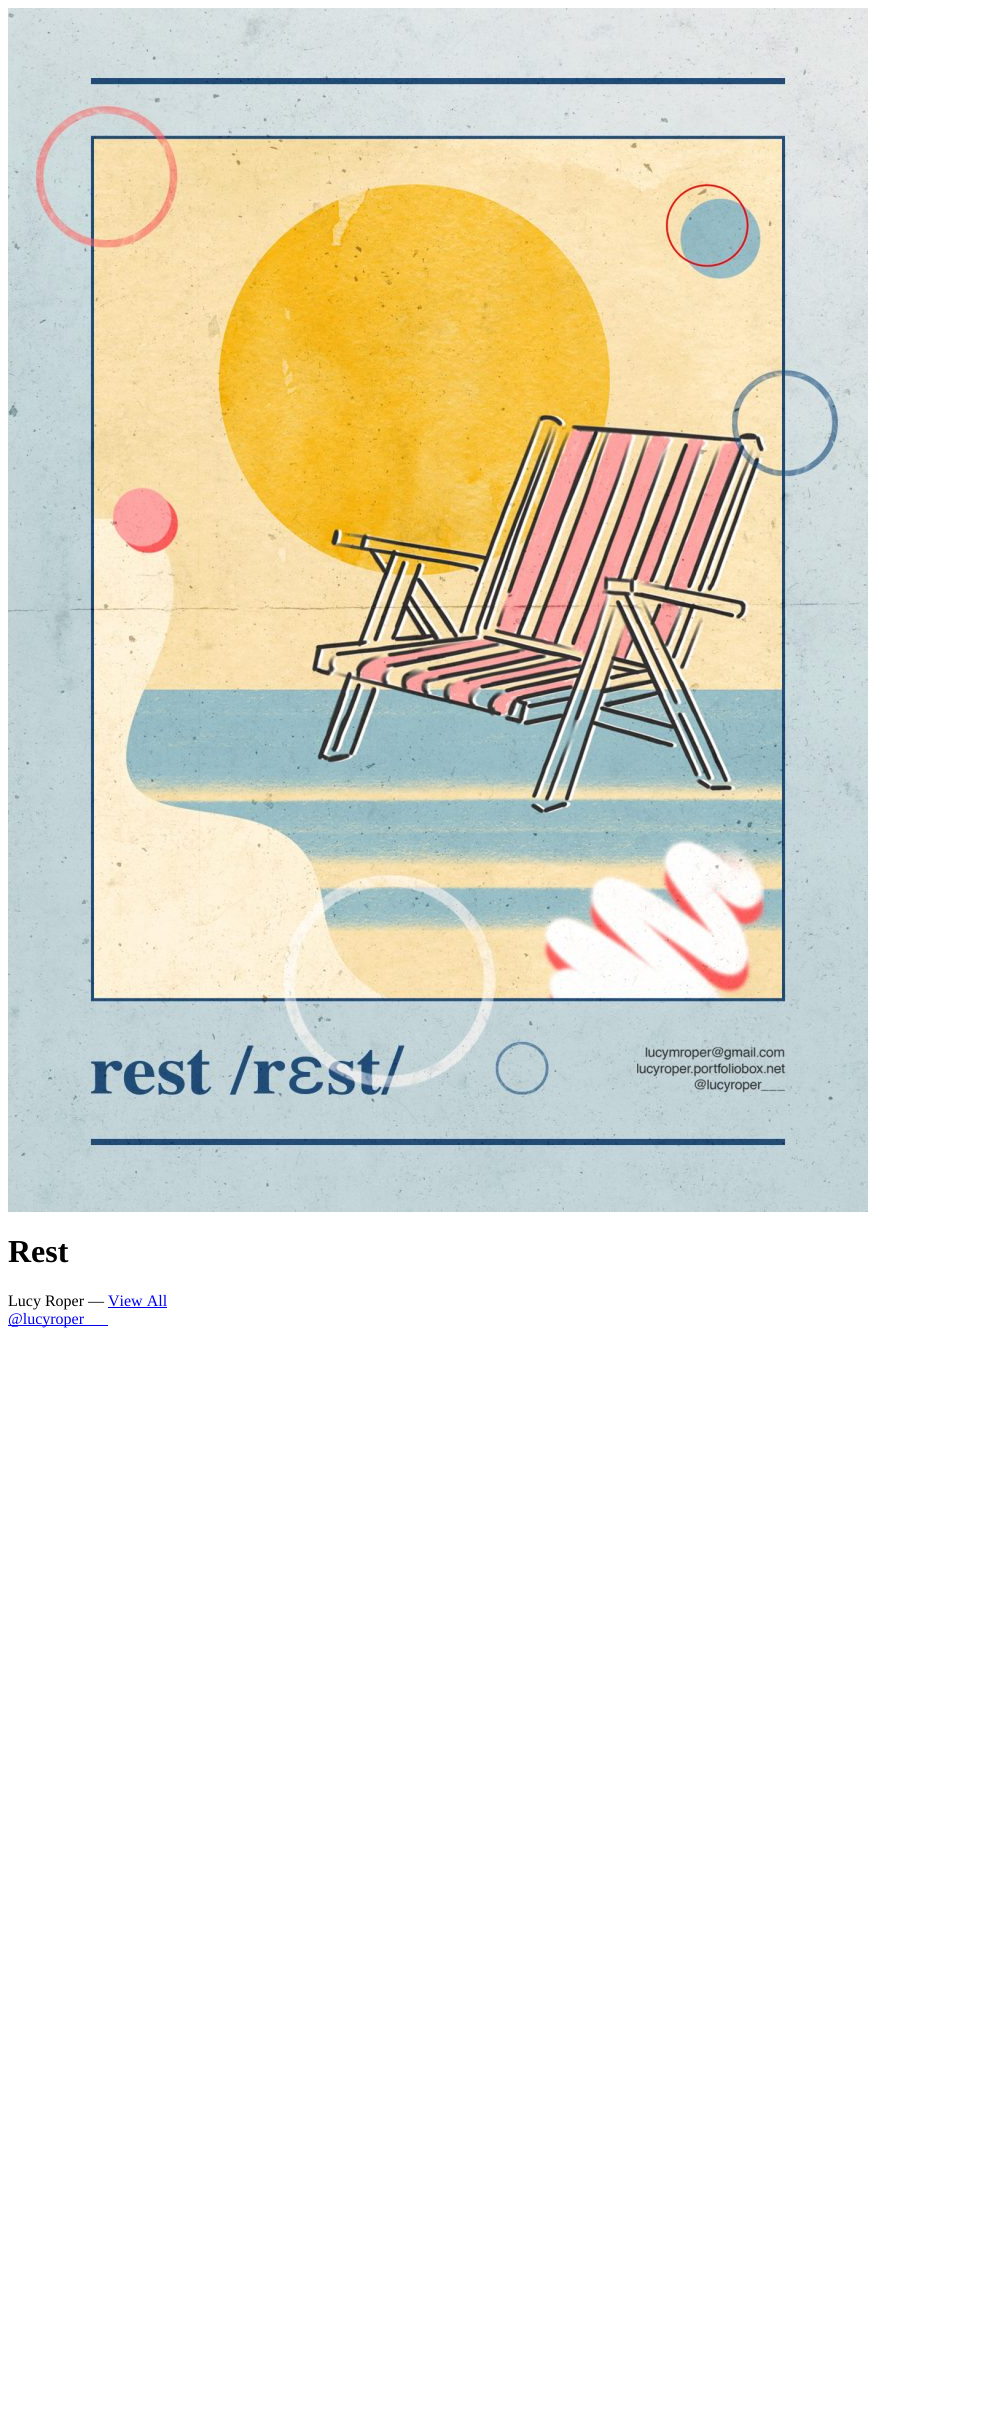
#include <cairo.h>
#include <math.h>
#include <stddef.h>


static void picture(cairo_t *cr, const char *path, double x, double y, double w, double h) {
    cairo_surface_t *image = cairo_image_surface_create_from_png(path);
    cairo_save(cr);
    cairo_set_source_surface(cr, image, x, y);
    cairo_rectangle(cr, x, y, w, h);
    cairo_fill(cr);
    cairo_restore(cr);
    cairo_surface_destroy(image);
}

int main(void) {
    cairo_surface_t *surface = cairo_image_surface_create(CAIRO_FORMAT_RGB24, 1003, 2424);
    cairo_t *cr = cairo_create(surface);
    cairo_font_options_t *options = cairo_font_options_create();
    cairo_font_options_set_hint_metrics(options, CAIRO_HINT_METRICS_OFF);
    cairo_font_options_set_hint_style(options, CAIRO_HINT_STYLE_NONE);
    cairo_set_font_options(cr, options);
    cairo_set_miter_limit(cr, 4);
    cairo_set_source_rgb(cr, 1, 1, 1);
    cairo_paint(cr);
    picture(cr, "img1.png", 8, 8, 860, 1204);
    cairo_select_font_face(cr, "Liberation Serif", CAIRO_FONT_SLANT_NORMAL, CAIRO_FONT_WEIGHT_BOLD);
    cairo_set_font_size(cr, 32);
    cairo_set_source_rgb(cr, 0, 0, 0);
    cairo_move_to(cr, 8, 1262);
    cairo_show_text(cr, "Rest");
    cairo_select_font_face(cr, "Liberation Serif", CAIRO_FONT_SLANT_NORMAL, CAIRO_FONT_WEIGHT_NORMAL);
    cairo_set_font_size(cr, 16);
    cairo_move_to(cr, 8, 1306);
    cairo_show_text(cr, "Lucy Roper —");
    cairo_set_source_rgb(cr, 0, 0, 0.933);
    cairo_move_to(cr, 108, 1306);
    cairo_show_text(cr, "View All");
    cairo_rectangle(cr, 108, 1307, 59, 1);
    cairo_fill(cr);
    cairo_rectangle(cr, 8, 1325, 100, 1);
    cairo_fill(cr);
    cairo_move_to(cr, 8, 1324);
    cairo_show_text(cr, "@lucyroper");
    cairo_surface_write_to_png(surface, "page.png");
    cairo_font_options_destroy(options);
    cairo_destroy(cr);
    cairo_surface_destroy(surface);
    return 0;
}
